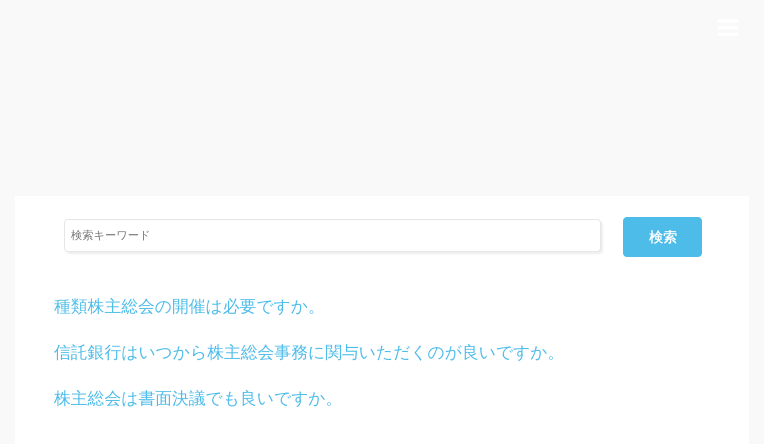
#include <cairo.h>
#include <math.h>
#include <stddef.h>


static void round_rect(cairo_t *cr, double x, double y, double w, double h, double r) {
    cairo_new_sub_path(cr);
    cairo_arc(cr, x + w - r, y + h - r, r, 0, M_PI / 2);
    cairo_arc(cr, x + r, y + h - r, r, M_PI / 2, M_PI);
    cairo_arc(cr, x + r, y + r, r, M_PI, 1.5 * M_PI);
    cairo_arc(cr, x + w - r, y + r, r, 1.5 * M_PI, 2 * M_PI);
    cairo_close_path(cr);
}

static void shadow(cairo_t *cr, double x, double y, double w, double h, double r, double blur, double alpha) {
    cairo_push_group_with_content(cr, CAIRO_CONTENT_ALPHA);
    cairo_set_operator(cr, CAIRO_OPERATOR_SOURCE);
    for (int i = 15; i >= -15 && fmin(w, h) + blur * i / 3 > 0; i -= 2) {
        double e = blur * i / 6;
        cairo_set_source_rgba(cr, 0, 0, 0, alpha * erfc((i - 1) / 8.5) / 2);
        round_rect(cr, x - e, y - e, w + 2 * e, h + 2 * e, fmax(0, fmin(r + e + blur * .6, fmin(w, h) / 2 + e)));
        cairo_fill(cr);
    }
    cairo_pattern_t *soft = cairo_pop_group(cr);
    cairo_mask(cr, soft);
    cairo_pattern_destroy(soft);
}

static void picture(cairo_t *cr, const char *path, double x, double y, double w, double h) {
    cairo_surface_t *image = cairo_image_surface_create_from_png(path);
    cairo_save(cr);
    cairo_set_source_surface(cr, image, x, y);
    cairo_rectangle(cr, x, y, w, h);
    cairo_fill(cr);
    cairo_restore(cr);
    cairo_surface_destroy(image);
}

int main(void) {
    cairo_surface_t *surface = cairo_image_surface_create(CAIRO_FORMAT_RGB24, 764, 444);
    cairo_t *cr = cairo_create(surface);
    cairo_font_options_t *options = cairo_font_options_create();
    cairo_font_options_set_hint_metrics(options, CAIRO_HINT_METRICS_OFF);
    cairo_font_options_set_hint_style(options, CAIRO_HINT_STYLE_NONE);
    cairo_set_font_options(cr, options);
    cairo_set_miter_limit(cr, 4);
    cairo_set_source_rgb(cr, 0.976, 0.976, 0.976);
    cairo_paint(cr);
    picture(cr, "img1.png", 718, 19, 20, 17);
    cairo_set_source_rgb(cr, 1, 1, 1);
    cairo_rectangle(cr, 15, 196, 734, 248);
    cairo_fill(cr);
    cairo_set_source_rgb(cr, 0, 0, 0);
    shadow(cr, 66, 221, 537, 33, 4, 1, 0.07);
    cairo_set_source_rgb(cr, 1, 1, 1);
    round_rect(cr, 64.5, 219.5, 536, 32, 3.5);
    cairo_fill_preserve(cr);
    cairo_set_source_rgb(cr, 0.902, 0.902, 0.902);
    cairo_set_line_width(cr, 1);
    cairo_stroke(cr);
    cairo_select_font_face(cr, "WenQuanYi Zen Hei Medium", CAIRO_FONT_SLANT_NORMAL, CAIRO_FONT_WEIGHT_NORMAL);
    cairo_set_font_size(cr, 11.25);
    cairo_set_source_rgb(cr, 0.459, 0.459, 0.459);
    cairo_move_to(cr, 71, 239);
    cairo_show_text(cr, "検索キーワード");
    cairo_set_source_rgb(cr, 0.302, 0.737, 0.914);
    round_rect(cr, 623, 217, 79, 40, 4);
    cairo_fill(cr);
    cairo_select_font_face(cr, "WenQuanYi Zen Hei", CAIRO_FONT_SLANT_NORMAL, CAIRO_FONT_WEIGHT_BOLD);
    cairo_set_font_size(cr, 14);
    cairo_set_source_rgb(cr, 1, 1, 1);
    cairo_move_to(cr, 649, 242);
    cairo_show_text(cr, "検索");
    cairo_select_font_face(cr, "WenQuanYi Zen Hei Medium", CAIRO_FONT_SLANT_NORMAL, CAIRO_FONT_WEIGHT_NORMAL);
    cairo_set_font_size(cr, 16.8);
    cairo_set_source_rgb(cr, 0.302, 0.737, 0.914);
    cairo_move_to(cr, 54, 312);
    cairo_show_text(cr, "種類株主総会の開催は必要ですか。");
    cairo_move_to(cr, 54, 358);
    cairo_show_text(cr, "信託銀行はいつから株主総会事務に関与いただくのが良いですか。");
    cairo_move_to(cr, 54, 404);
    cairo_show_text(cr, "株主総会は書面決議でも良いですか。");
    cairo_surface_write_to_png(surface, "page.png");
    cairo_font_options_destroy(options);
    cairo_destroy(cr);
    cairo_surface_destroy(surface);
    return 0;
}
